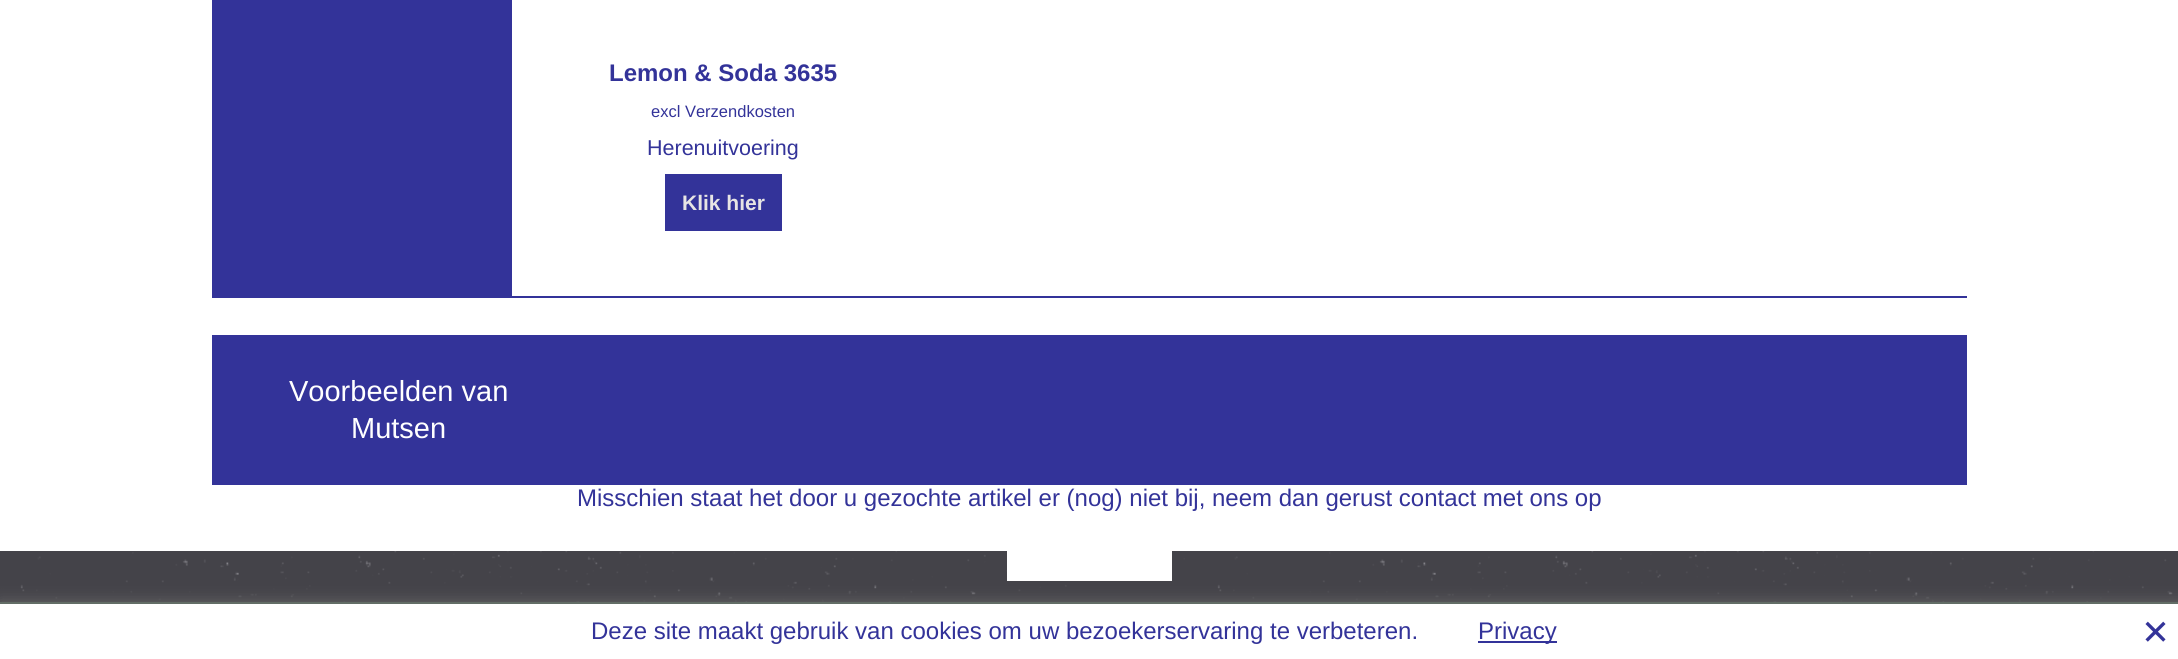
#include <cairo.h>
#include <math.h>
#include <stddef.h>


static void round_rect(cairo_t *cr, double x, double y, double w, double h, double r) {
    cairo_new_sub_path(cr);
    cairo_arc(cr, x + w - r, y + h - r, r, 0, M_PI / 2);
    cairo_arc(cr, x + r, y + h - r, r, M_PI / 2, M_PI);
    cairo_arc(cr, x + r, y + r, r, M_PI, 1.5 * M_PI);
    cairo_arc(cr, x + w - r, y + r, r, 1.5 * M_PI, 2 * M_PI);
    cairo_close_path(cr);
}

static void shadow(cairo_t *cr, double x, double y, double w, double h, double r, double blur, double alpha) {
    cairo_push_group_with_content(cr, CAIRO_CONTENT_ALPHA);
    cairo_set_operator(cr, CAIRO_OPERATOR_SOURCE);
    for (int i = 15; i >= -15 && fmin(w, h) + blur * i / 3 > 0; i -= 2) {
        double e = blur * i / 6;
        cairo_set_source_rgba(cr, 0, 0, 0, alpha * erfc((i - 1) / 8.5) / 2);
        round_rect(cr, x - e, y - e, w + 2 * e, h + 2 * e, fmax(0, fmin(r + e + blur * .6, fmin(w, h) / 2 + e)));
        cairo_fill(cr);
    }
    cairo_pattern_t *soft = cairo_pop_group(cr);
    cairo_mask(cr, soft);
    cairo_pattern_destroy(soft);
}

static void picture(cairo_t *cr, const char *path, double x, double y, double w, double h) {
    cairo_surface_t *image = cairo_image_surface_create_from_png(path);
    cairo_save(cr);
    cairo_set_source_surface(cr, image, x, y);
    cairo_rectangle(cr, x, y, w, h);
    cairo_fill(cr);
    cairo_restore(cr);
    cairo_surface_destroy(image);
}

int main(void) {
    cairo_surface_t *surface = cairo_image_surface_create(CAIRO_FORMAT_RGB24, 2178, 659);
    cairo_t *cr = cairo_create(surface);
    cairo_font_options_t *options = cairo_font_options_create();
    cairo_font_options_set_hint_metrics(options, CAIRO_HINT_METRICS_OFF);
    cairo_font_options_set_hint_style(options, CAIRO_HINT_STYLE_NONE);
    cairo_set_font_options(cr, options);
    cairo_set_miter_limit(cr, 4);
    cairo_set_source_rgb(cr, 1, 1, 1);
    cairo_paint(cr);
    picture(cr, "img1.png", 0, 551, 2178, 51);
    cairo_set_source_rgb(cr, 0.2, 0.2, 0.6);
    cairo_rectangle(cr, 212, 0, 300, 296);
    cairo_fill(cr);
    cairo_select_font_face(cr, "Liberation Sans", CAIRO_FONT_SLANT_NORMAL, CAIRO_FONT_WEIGHT_BOLD);
    cairo_set_font_size(cr, 24);
    cairo_move_to(cr, 609, 81);
    cairo_show_text(cr, "Lemon & Soda 3635");
    cairo_select_font_face(cr, "Liberation Sans", CAIRO_FONT_SLANT_NORMAL, CAIRO_FONT_WEIGHT_NORMAL);
    cairo_set_font_size(cr, 16.5);
    cairo_move_to(cr, 651, 117);
    cairo_show_text(cr, "excl Verzendkosten");
    cairo_set_font_size(cr, 21.5);
    cairo_move_to(cr, 647, 155);
    cairo_show_text(cr, "Herenuitvoering");
    cairo_rectangle(cr, 665, 174, 117, 57);
    cairo_fill(cr);
    cairo_select_font_face(cr, "Liberation Sans", CAIRO_FONT_SLANT_NORMAL, CAIRO_FONT_WEIGHT_BOLD);
    cairo_set_font_size(cr, 21);
    cairo_set_source_rgb(cr, 0.906, 0.898, 0.894);
    cairo_move_to(cr, 682, 210);
    cairo_show_text(cr, "Klik hier");
    cairo_set_source_rgb(cr, 0.2, 0.2, 0.6);
    cairo_rectangle(cr, 212, 296, 1755, 2);
    cairo_fill(cr);
    cairo_rectangle(cr, 212, 335, 1755, 150);
    cairo_fill(cr);
    cairo_select_font_face(cr, "Liberation Sans", CAIRO_FONT_SLANT_NORMAL, CAIRO_FONT_WEIGHT_NORMAL);
    cairo_set_font_size(cr, 29);
    cairo_set_source_rgb(cr, 1, 1, 1);
    cairo_move_to(cr, 289, 401);
    cairo_show_text(cr, "Voorbeelden van");
    cairo_move_to(cr, 351, 438);
    cairo_show_text(cr, "Mutsen");
    cairo_set_font_size(cr, 24);
    cairo_set_source_rgb(cr, 0.2, 0.2, 0.6);
    cairo_move_to(cr, 577, 506);
    cairo_show_text(cr, "Misschien staat het door u gezochte artikel er (nog) niet bij, neem dan gerust contact met ons op");
    cairo_set_source_rgb(cr, 1, 1, 1);
    cairo_rectangle(cr, 1007, 551, 165, 30);
    cairo_fill(cr);
    cairo_set_source_rgb(cr, 0.4, 0.4, 0.4);
    shadow(cr, 0, 602, 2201, 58, 0, 7.5, 1);
    cairo_set_source_rgb(cr, 1, 1, 1);
    cairo_rectangle(cr, 0, 604, 2178, 55);
    cairo_fill(cr);
    cairo_set_source_rgb(cr, 0.384, 0.427, 0.4);
    cairo_rectangle(cr, 0, 602, 2178, 2);
    cairo_fill(cr);
    cairo_set_source_rgb(cr, 0.2, 0.2, 0.6);
    cairo_move_to(cr, 591, 639);
    cairo_show_text(cr, "Deze site maakt gebruik van cookies om uw bezoekerservaring te verbeteren.");
    cairo_rectangle(cr, 1478, 641, 79, 2);
    cairo_fill(cr);
    cairo_move_to(cr, 1478, 639);
    cairo_show_text(cr, "Privacy");
    picture(cr, "img2.png", 2145, 621, 21, 21);
    cairo_surface_write_to_png(surface, "page.png");
    cairo_font_options_destroy(options);
    cairo_destroy(cr);
    cairo_surface_destroy(surface);
    return 0;
}
